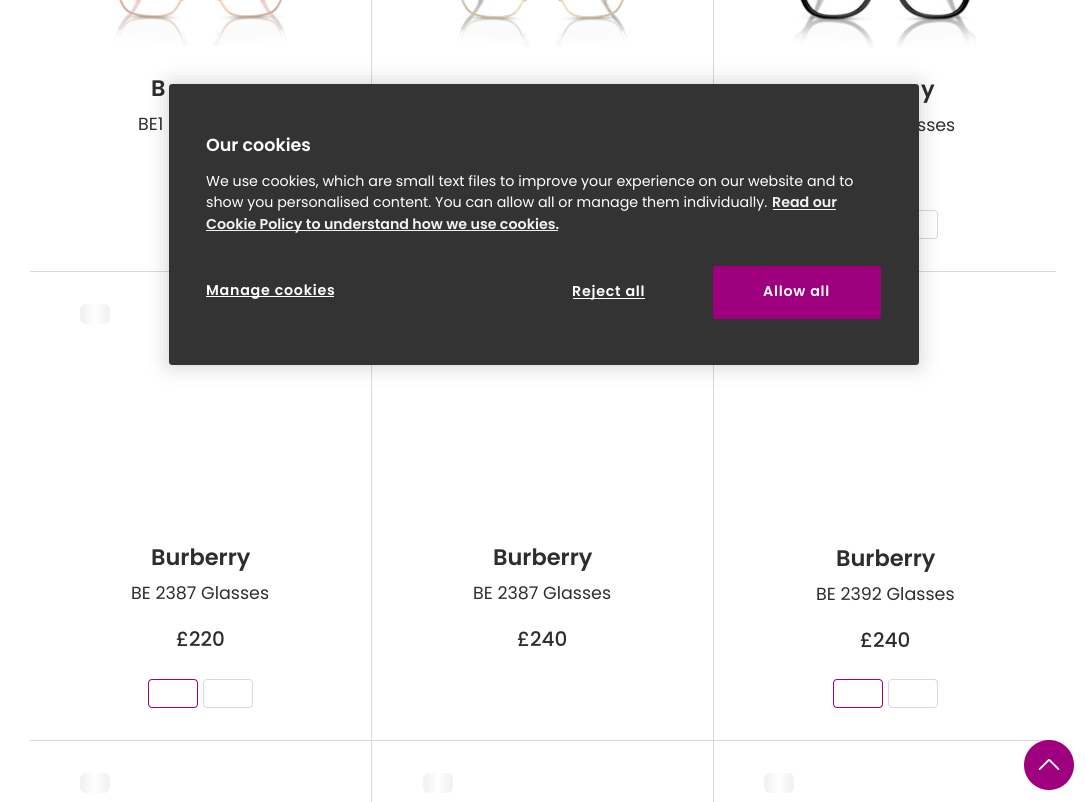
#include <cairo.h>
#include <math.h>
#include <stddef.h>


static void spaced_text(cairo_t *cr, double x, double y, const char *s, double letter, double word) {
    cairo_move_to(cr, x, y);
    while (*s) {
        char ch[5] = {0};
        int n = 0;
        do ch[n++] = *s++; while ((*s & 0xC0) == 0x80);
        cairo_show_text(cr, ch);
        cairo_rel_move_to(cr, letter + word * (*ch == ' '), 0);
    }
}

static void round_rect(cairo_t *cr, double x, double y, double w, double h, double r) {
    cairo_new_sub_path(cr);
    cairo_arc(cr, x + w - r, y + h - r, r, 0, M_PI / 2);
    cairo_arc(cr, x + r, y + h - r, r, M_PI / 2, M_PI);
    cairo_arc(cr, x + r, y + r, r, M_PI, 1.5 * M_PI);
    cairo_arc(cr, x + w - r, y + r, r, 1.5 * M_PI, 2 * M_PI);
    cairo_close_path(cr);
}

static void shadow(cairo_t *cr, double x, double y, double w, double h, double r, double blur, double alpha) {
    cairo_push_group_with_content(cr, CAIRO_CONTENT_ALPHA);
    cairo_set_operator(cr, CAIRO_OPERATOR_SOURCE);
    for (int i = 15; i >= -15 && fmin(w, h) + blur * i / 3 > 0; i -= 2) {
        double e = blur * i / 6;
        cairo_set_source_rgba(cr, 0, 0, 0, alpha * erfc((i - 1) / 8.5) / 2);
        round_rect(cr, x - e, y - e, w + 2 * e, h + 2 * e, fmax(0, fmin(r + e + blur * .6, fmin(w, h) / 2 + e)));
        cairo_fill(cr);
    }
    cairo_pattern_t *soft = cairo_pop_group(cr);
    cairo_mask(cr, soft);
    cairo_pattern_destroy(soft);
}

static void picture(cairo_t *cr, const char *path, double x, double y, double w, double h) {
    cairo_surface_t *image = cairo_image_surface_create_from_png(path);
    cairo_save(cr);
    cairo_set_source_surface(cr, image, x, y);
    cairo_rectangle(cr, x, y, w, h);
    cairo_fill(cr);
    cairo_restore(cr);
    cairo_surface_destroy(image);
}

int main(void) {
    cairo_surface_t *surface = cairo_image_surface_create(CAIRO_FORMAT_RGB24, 1086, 802);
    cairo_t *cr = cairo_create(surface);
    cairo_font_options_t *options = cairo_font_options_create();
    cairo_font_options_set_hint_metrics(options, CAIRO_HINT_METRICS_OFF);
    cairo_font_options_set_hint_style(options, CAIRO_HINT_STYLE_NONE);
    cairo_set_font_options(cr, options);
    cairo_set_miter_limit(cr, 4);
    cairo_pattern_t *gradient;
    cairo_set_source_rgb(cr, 1, 1, 1);
    cairo_paint(cr);
    cairo_set_source_rgb(cr, 0.843, 0.851, 0.867);
    cairo_rectangle(cr, 713, 0, 1, 84);
    cairo_fill(cr);
    picture(cr, "img1.png", 457, 0, 171, 47);
    cairo_rectangle(cr, 371, 0, 1, 84);
    cairo_fill(cr);
    cairo_rectangle(cr, 30, 271, 139, 1);
    cairo_fill(cr);
    picture(cr, "img2.png", 115, 0, 172, 46);
    cairo_select_font_face(cr, "Poppins SemiBold", CAIRO_FONT_SLANT_NORMAL, CAIRO_FONT_WEIGHT_NORMAL);
    cairo_set_font_size(cr, 22.5);
    cairo_set_source_rgb(cr, 0.169, 0.18, 0.192);
    cairo_move_to(cr, 151, 96);
    cairo_show_text(cr, "B");
    cairo_select_font_face(cr, "Poppins", CAIRO_FONT_SLANT_NORMAL, CAIRO_FONT_WEIGHT_NORMAL);
    cairo_set_font_size(cr, 17.5);
    cairo_move_to(cr, 138, 130);
    cairo_show_text(cr, "BE1");
    cairo_set_source_rgb(cr, 0.843, 0.851, 0.867);
    cairo_rectangle(cr, 919, 271, 137, 1);
    cairo_fill(cr);
    picture(cr, "img3.png", 794, 0, 182, 48);
    cairo_select_font_face(cr, "Poppins SemiBold", CAIRO_FONT_SLANT_NORMAL, CAIRO_FONT_WEIGHT_NORMAL);
    cairo_set_font_size(cr, 22.5);
    cairo_set_source_rgb(cr, 0.169, 0.18, 0.192);
    cairo_move_to(cr, 921, 97);
    cairo_show_text(cr, "y");
    cairo_select_font_face(cr, "Poppins", CAIRO_FONT_SLANT_NORMAL, CAIRO_FONT_WEIGHT_NORMAL);
    cairo_set_font_size(cr, 17.5);
    cairo_move_to(cr, 917, 131);
    cairo_show_text(cr, "sses");
    round_rect(cr, 888.5, 210.5, 49, 28, 3.5);
    cairo_set_source_rgb(cr, 0.843, 0.851, 0.867);
    cairo_set_line_width(cr, 1);
    cairo_stroke(cr);
    cairo_rectangle(cr, 371, 365, 1, 437);
    cairo_fill(cr);
    cairo_rectangle(cr, 30, 740, 343, 1);
    cairo_fill(cr);
    gradient = cairo_pattern_create_linear(80, 304, 110, 304);
    cairo_pattern_add_color_stop_rgba(gradient, 0.1, 0.945, 0.949, 0.953, 1);
    cairo_pattern_add_color_stop_rgba(gradient, 0.5, 1, 1, 1, 1);
    cairo_pattern_add_color_stop_rgba(gradient, 0.9, 0.945, 0.949, 0.953, 1);
    cairo_set_source(cr, gradient);
    cairo_pattern_destroy(gradient);
    round_rect(cr, 80, 304, 30, 20, 6);
    cairo_fill(cr);
    cairo_select_font_face(cr, "Poppins SemiBold", CAIRO_FONT_SLANT_NORMAL, CAIRO_FONT_WEIGHT_NORMAL);
    cairo_set_font_size(cr, 22.5);
    cairo_set_source_rgb(cr, 0.169, 0.18, 0.192);
    cairo_move_to(cr, 151, 565);
    cairo_show_text(cr, "Burberry");
    cairo_select_font_face(cr, "Poppins", CAIRO_FONT_SLANT_NORMAL, CAIRO_FONT_WEIGHT_NORMAL);
    cairo_set_font_size(cr, 17.5);
    cairo_move_to(cr, 131, 599);
    cairo_show_text(cr, "BE 2387 Glasses");
    cairo_select_font_face(cr, "Poppins Medium", CAIRO_FONT_SLANT_NORMAL, CAIRO_FONT_WEIGHT_NORMAL);
    cairo_set_font_size(cr, 20);
    cairo_move_to(cr, 176, 646);
    cairo_show_text(cr, "£220");
    round_rect(cr, 148.5, 679.5, 49, 28, 3.5);
    cairo_set_source_rgb(cr, 0.62, 0, 0.494);
    cairo_stroke(cr);
    round_rect(cr, 203.5, 679.5, 49, 28, 3.5);
    cairo_set_source_rgb(cr, 0.843, 0.851, 0.867);
    cairo_stroke(cr);
    cairo_rectangle(cr, 713, 365, 1, 437);
    cairo_fill(cr);
    cairo_rectangle(cr, 373, 740, 683, 1);
    cairo_fill(cr);
    cairo_select_font_face(cr, "Poppins SemiBold", CAIRO_FONT_SLANT_NORMAL, CAIRO_FONT_WEIGHT_NORMAL);
    cairo_set_font_size(cr, 22.5);
    cairo_set_source_rgb(cr, 0.169, 0.18, 0.192);
    cairo_move_to(cr, 493, 565);
    cairo_show_text(cr, "Burberry");
    cairo_select_font_face(cr, "Poppins", CAIRO_FONT_SLANT_NORMAL, CAIRO_FONT_WEIGHT_NORMAL);
    cairo_set_font_size(cr, 17.5);
    cairo_move_to(cr, 473, 599);
    cairo_show_text(cr, "BE 2387 Glasses");
    cairo_select_font_face(cr, "Poppins Medium", CAIRO_FONT_SLANT_NORMAL, CAIRO_FONT_WEIGHT_NORMAL);
    cairo_set_font_size(cr, 20);
    cairo_move_to(cr, 517, 646);
    cairo_show_text(cr, "£240");
    cairo_select_font_face(cr, "Poppins SemiBold", CAIRO_FONT_SLANT_NORMAL, CAIRO_FONT_WEIGHT_NORMAL);
    cairo_set_font_size(cr, 22.5);
    cairo_move_to(cr, 836, 566);
    cairo_show_text(cr, "Burberry");
    cairo_select_font_face(cr, "Poppins", CAIRO_FONT_SLANT_NORMAL, CAIRO_FONT_WEIGHT_NORMAL);
    cairo_set_font_size(cr, 17.5);
    cairo_move_to(cr, 816, 600);
    cairo_show_text(cr, "BE 2392 Glasses");
    cairo_select_font_face(cr, "Poppins Medium", CAIRO_FONT_SLANT_NORMAL, CAIRO_FONT_WEIGHT_NORMAL);
    cairo_set_font_size(cr, 20);
    cairo_move_to(cr, 860, 647);
    cairo_show_text(cr, "£240");
    round_rect(cr, 833.5, 679.5, 49, 28, 3.5);
    cairo_set_source_rgb(cr, 0.62, 0, 0.494);
    cairo_stroke(cr);
    round_rect(cr, 888.5, 679.5, 49, 28, 3.5);
    cairo_set_source_rgb(cr, 0.843, 0.851, 0.867);
    cairo_stroke(cr);
    gradient = cairo_pattern_create_linear(80, 773, 110, 773);
    cairo_pattern_add_color_stop_rgba(gradient, 0.1, 0.945, 0.949, 0.953, 1);
    cairo_pattern_add_color_stop_rgba(gradient, 0.5, 1, 1, 1, 1);
    cairo_pattern_add_color_stop_rgba(gradient, 0.9, 0.945, 0.949, 0.953, 1);
    cairo_set_source(cr, gradient);
    cairo_pattern_destroy(gradient);
    round_rect(cr, 80, 773, 30, 20, 6);
    cairo_fill(cr);
    gradient = cairo_pattern_create_linear(423, 773, 453, 773);
    cairo_pattern_add_color_stop_rgba(gradient, 0.1, 0.945, 0.949, 0.953, 1);
    cairo_pattern_add_color_stop_rgba(gradient, 0.5, 1, 1, 1, 1);
    cairo_pattern_add_color_stop_rgba(gradient, 0.9, 0.945, 0.949, 0.953, 1);
    cairo_set_source(cr, gradient);
    cairo_pattern_destroy(gradient);
    round_rect(cr, 423, 773, 30, 20, 6);
    cairo_fill(cr);
    gradient = cairo_pattern_create_linear(764, 773, 794, 773);
    cairo_pattern_add_color_stop_rgba(gradient, 0.1, 0.945, 0.949, 0.953, 1);
    cairo_pattern_add_color_stop_rgba(gradient, 0.5, 1, 1, 1, 1);
    cairo_pattern_add_color_stop_rgba(gradient, 0.9, 0.945, 0.949, 0.953, 1);
    cairo_set_source(cr, gradient);
    cairo_pattern_destroy(gradient);
    round_rect(cr, 764, 773, 30, 20, 6);
    cairo_fill(cr);
    cairo_set_source_rgb(cr, 0.62, 0, 0.494);
    cairo_arc(cr, 1049, 765, 25, 0, 2 * M_PI);
    cairo_fill(cr);
    picture(cr, "img4.png", 1038, 759, 22, 11);
    cairo_set_source_rgb(cr, 0, 0, 0);
    shadow(cr, 169, 84, 750, 281, 3, 11, 0.2);
    cairo_set_source_rgb(cr, 0.2, 0.2, 0.2);
    round_rect(cr, 169, 84, 750, 281, 3);
    cairo_fill(cr);
    cairo_select_font_face(cr, "Poppins SemiBold", CAIRO_FONT_SLANT_NORMAL, CAIRO_FONT_WEIGHT_NORMAL);
    cairo_set_font_size(cr, 17.5);
    cairo_set_source_rgb(cr, 1, 1, 1);
    cairo_move_to(cr, 206, 151);
    cairo_show_text(cr, "Our cookies");
    cairo_select_font_face(cr, "Poppins", CAIRO_FONT_SLANT_NORMAL, CAIRO_FONT_WEIGHT_NORMAL);
    cairo_set_font_size(cr, 14.25);
    cairo_move_to(cr, 206, 186);
    cairo_show_text(cr, "We use cookies, which are small text files to improve your experience on our website and to");
    cairo_move_to(cr, 206, 207);
    cairo_show_text(cr, "show you personalised content. You can allow all or manage them individually.");
    cairo_select_font_face(cr, "Poppins SemiBold", CAIRO_FONT_SLANT_NORMAL, CAIRO_FONT_WEIGHT_NORMAL);
    cairo_set_source_rgb(cr, 0.949, 0.949, 0.949);
    cairo_move_to(cr, 772, 207);
    cairo_show_text(cr, "Read our");
    cairo_rectangle(cr, 773, 209, 63, 1);
    cairo_fill(cr);
    cairo_rectangle(cr, 206, 230, 352, 1);
    cairo_fill(cr);
    cairo_move_to(cr, 206, 229);
    cairo_show_text(cr, "Cookie Policy to understand how we use cookies.");
    cairo_set_source_rgb(cr, 1, 1, 1);
    cairo_rectangle(cr, 206, 296, 128, 1);
    cairo_fill(cr);
    spaced_text(cr, 206, 295, "Manage cookies", 0.75, 0);
    cairo_rectangle(cr, 573, 298, 72, 1);
    cairo_fill(cr);
    spaced_text(cr, 572, 296, "Reject all", 0.75, 0);
    cairo_set_source_rgb(cr, 0.62, 0, 0.494);
    round_rect(cr, 713.5, 266.5, 167, 52, 2);
    cairo_fill_preserve(cr);
    cairo_stroke(cr);
    cairo_set_source_rgb(cr, 1, 1, 1);
    spaced_text(cr, 763, 296, "Allow all", 0.75, 0);
    cairo_surface_write_to_png(surface, "page.png");
    cairo_font_options_destroy(options);
    cairo_destroy(cr);
    cairo_surface_destroy(surface);
    return 0;
}
